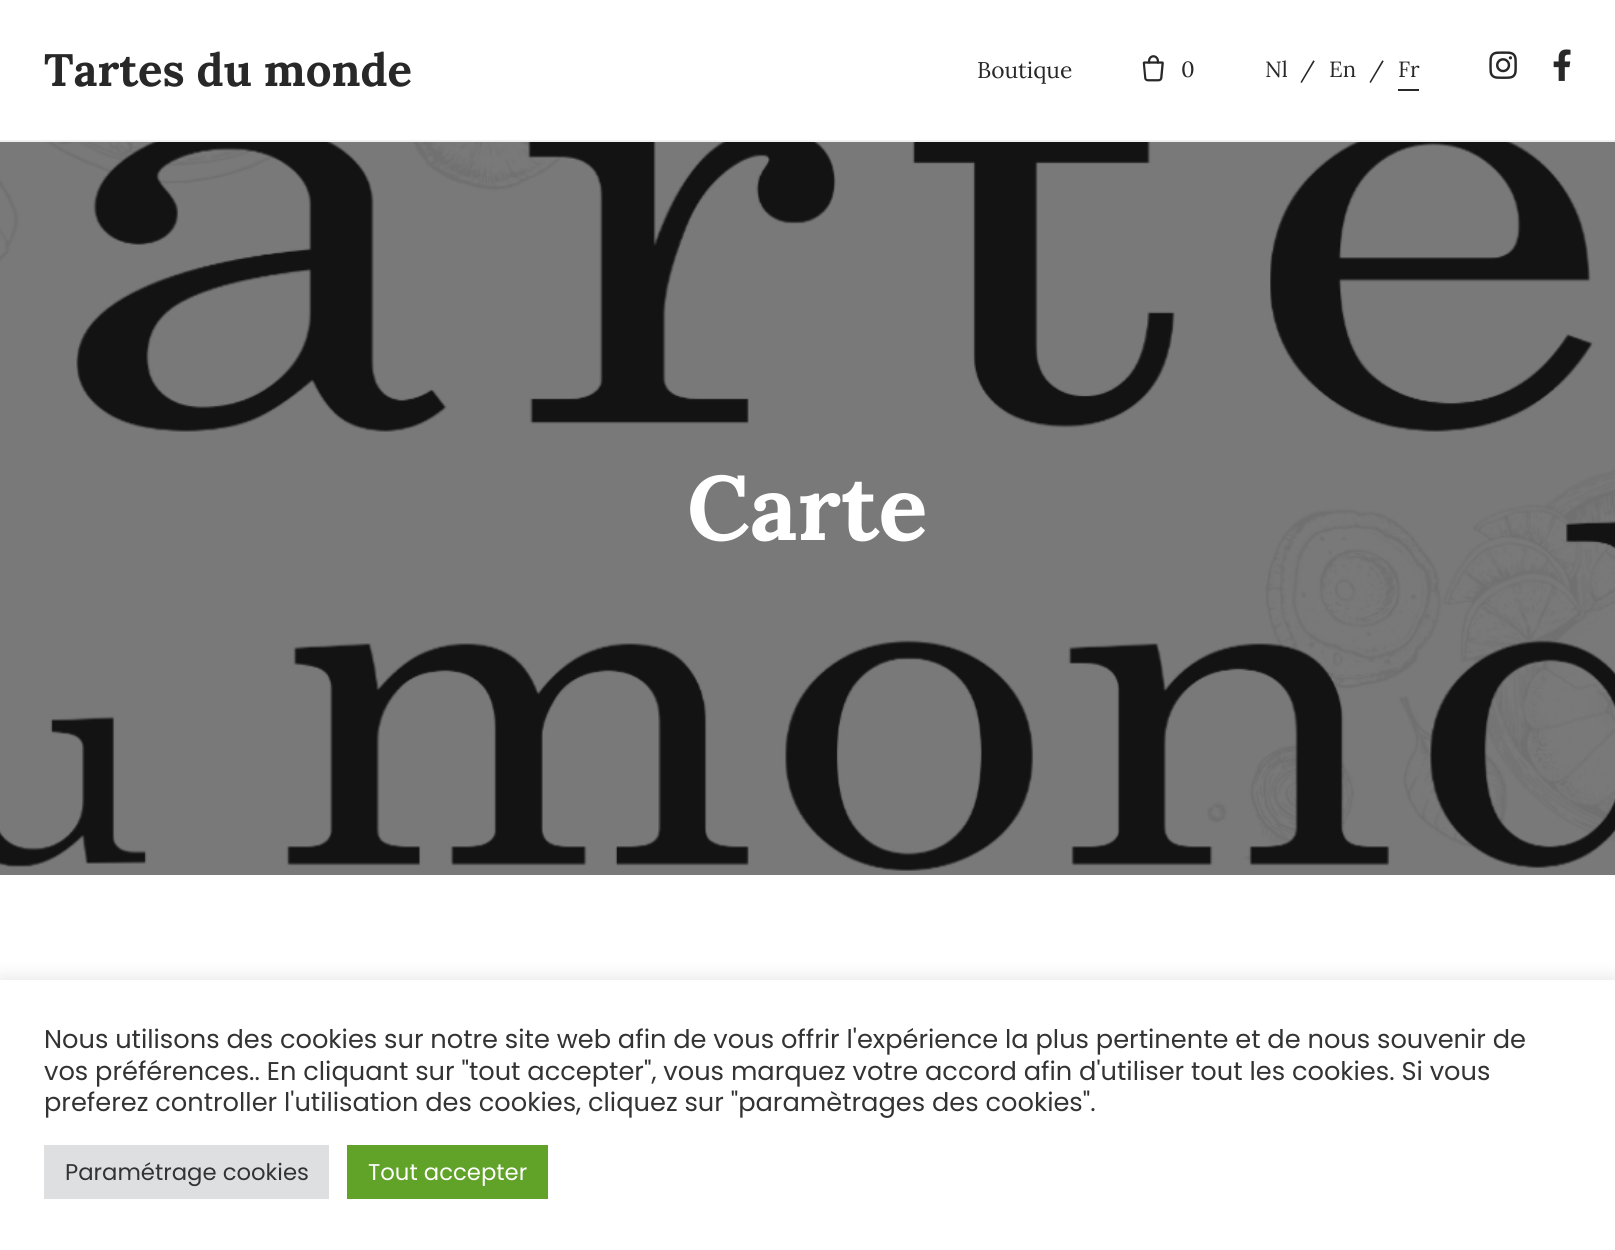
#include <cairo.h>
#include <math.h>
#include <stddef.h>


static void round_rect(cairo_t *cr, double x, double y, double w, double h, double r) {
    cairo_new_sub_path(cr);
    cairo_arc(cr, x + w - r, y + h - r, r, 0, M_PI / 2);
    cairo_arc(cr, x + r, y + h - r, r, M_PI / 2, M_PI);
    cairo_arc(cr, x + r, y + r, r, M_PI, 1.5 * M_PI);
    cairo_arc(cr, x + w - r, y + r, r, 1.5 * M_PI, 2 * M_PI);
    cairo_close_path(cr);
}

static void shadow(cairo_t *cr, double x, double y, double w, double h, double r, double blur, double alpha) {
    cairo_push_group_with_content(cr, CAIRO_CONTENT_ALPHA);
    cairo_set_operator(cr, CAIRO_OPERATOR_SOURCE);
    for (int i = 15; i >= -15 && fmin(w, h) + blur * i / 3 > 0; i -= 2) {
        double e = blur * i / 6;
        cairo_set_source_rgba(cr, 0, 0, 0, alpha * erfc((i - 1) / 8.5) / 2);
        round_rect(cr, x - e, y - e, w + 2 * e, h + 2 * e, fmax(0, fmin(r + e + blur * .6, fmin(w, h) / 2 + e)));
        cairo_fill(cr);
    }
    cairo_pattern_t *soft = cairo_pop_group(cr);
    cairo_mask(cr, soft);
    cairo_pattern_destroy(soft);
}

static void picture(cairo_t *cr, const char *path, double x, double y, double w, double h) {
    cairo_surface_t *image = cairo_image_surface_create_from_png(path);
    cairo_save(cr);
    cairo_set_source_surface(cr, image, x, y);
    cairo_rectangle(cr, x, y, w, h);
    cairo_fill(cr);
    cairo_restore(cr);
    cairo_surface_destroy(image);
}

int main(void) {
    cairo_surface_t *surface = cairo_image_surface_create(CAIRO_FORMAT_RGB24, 1615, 1250);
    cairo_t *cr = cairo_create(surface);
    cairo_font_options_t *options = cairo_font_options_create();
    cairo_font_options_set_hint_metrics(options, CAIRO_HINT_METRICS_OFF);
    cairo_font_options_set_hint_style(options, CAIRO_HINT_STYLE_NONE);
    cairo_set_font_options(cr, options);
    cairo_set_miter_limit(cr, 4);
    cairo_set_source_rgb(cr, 1, 1, 1);
    cairo_paint(cr);
    cairo_set_source_rgb(cr, 0.941, 0.941, 0.941);
    cairo_rectangle(cr, 0, 140, 1615, 2);
    cairo_fill(cr);
    cairo_select_font_face(cr, "Lora", CAIRO_FONT_SLANT_NORMAL, CAIRO_FONT_WEIGHT_BOLD);
    cairo_set_font_size(cr, 45.5);
    cairo_set_source_rgb(cr, 0.157, 0.157, 0.157);
    cairo_move_to(cr, 44, 86);
    cairo_show_text(cr, "Tartes du monde");
    cairo_select_font_face(cr, "Lora", CAIRO_FONT_SLANT_NORMAL, CAIRO_FONT_WEIGHT_NORMAL);
    cairo_set_font_size(cr, 22.75);
    cairo_move_to(cr, 977, 78);
    cairo_show_text(cr, "Boutique");
    picture(cr, "img1.png", 1142, 55, 22, 27);
    cairo_set_font_size(cr, 22);
    cairo_move_to(cr, 1181, 77);
    cairo_show_text(cr, "0");
    cairo_move_to(cr, 1265, 77);
    cairo_show_text(cr, "Nl");
    cairo_move_to(cr, 1300, 77);
    cairo_show_text(cr, "/");
    cairo_move_to(cr, 1329, 77);
    cairo_show_text(cr, "En");
    cairo_move_to(cr, 1369, 77);
    cairo_show_text(cr, "/");
    cairo_move_to(cr, 1398, 77);
    cairo_show_text(cr, "Fr");
    cairo_rectangle(cr, 1398, 89, 21, 2);
    cairo_fill(cr);
    picture(cr, "img2.png", 1489, 51, 28, 28);
    picture(cr, "img3.png", 1553, 49, 18, 32);
    picture(cr, "img4.png", 0, 142, 1615, 733);
    cairo_select_font_face(cr, "Lora", CAIRO_FONT_SLANT_NORMAL, CAIRO_FONT_WEIGHT_BOLD);
    cairo_set_font_size(cr, 91);
    cairo_set_source_rgb(cr, 1, 1, 1);
    cairo_move_to(cr, 687, 540);
    cairo_show_text(cr, "Carte");
    cairo_set_source_rgb(cr, 0.675, 0.671, 0.671);
    shadow(cr, 0, 978, 1615, 272, 0, 9, 0.3);
    cairo_set_source_rgb(cr, 1, 1, 1);
    cairo_rectangle(cr, 0, 980, 1615, 270);
    cairo_fill(cr);
    cairo_select_font_face(cr, "Poppins", CAIRO_FONT_SLANT_NORMAL, CAIRO_FONT_WEIGHT_NORMAL);
    cairo_set_font_size(cr, 25.67);
    cairo_set_source_rgb(cr, 0.2, 0.2, 0.2);
    cairo_move_to(cr, 44, 1048);
    cairo_show_text(cr, "Nous utilisons des cookies sur notre site web afin de vous offrir l'expérience la plus pertinente et de nous souvenir de");
    cairo_move_to(cr, 44, 1080);
    cairo_show_text(cr, "vos préférences.. En cliquant sur \"tout accepter\", vous marquez votre accord afin d'utiliser tout les cookies. Si vous");
    cairo_move_to(cr, 44, 1111);
    cairo_show_text(cr, "preferez controller l'utilisation des cookies, cliquez sur \"paramètrages des cookies\".");
    cairo_set_source_rgb(cr, 0.871, 0.875, 0.878);
    cairo_rectangle(cr, 44, 1145, 285, 54);
    cairo_fill(cr);
    cairo_set_font_size(cr, 22.75);
    cairo_set_source_rgb(cr, 0.2, 0.2, 0.2);
    cairo_move_to(cr, 65, 1180);
    cairo_show_text(cr, "Paramétrage cookies");
    cairo_set_source_rgb(cr, 0.38, 0.635, 0.161);
    cairo_rectangle(cr, 347, 1145, 201, 54);
    cairo_fill(cr);
    cairo_set_source_rgb(cr, 1, 1, 1);
    cairo_move_to(cr, 368, 1180);
    cairo_show_text(cr, "Tout accepter");
    cairo_surface_write_to_png(surface, "page.png");
    cairo_font_options_destroy(options);
    cairo_destroy(cr);
    cairo_surface_destroy(surface);
    return 0;
}
